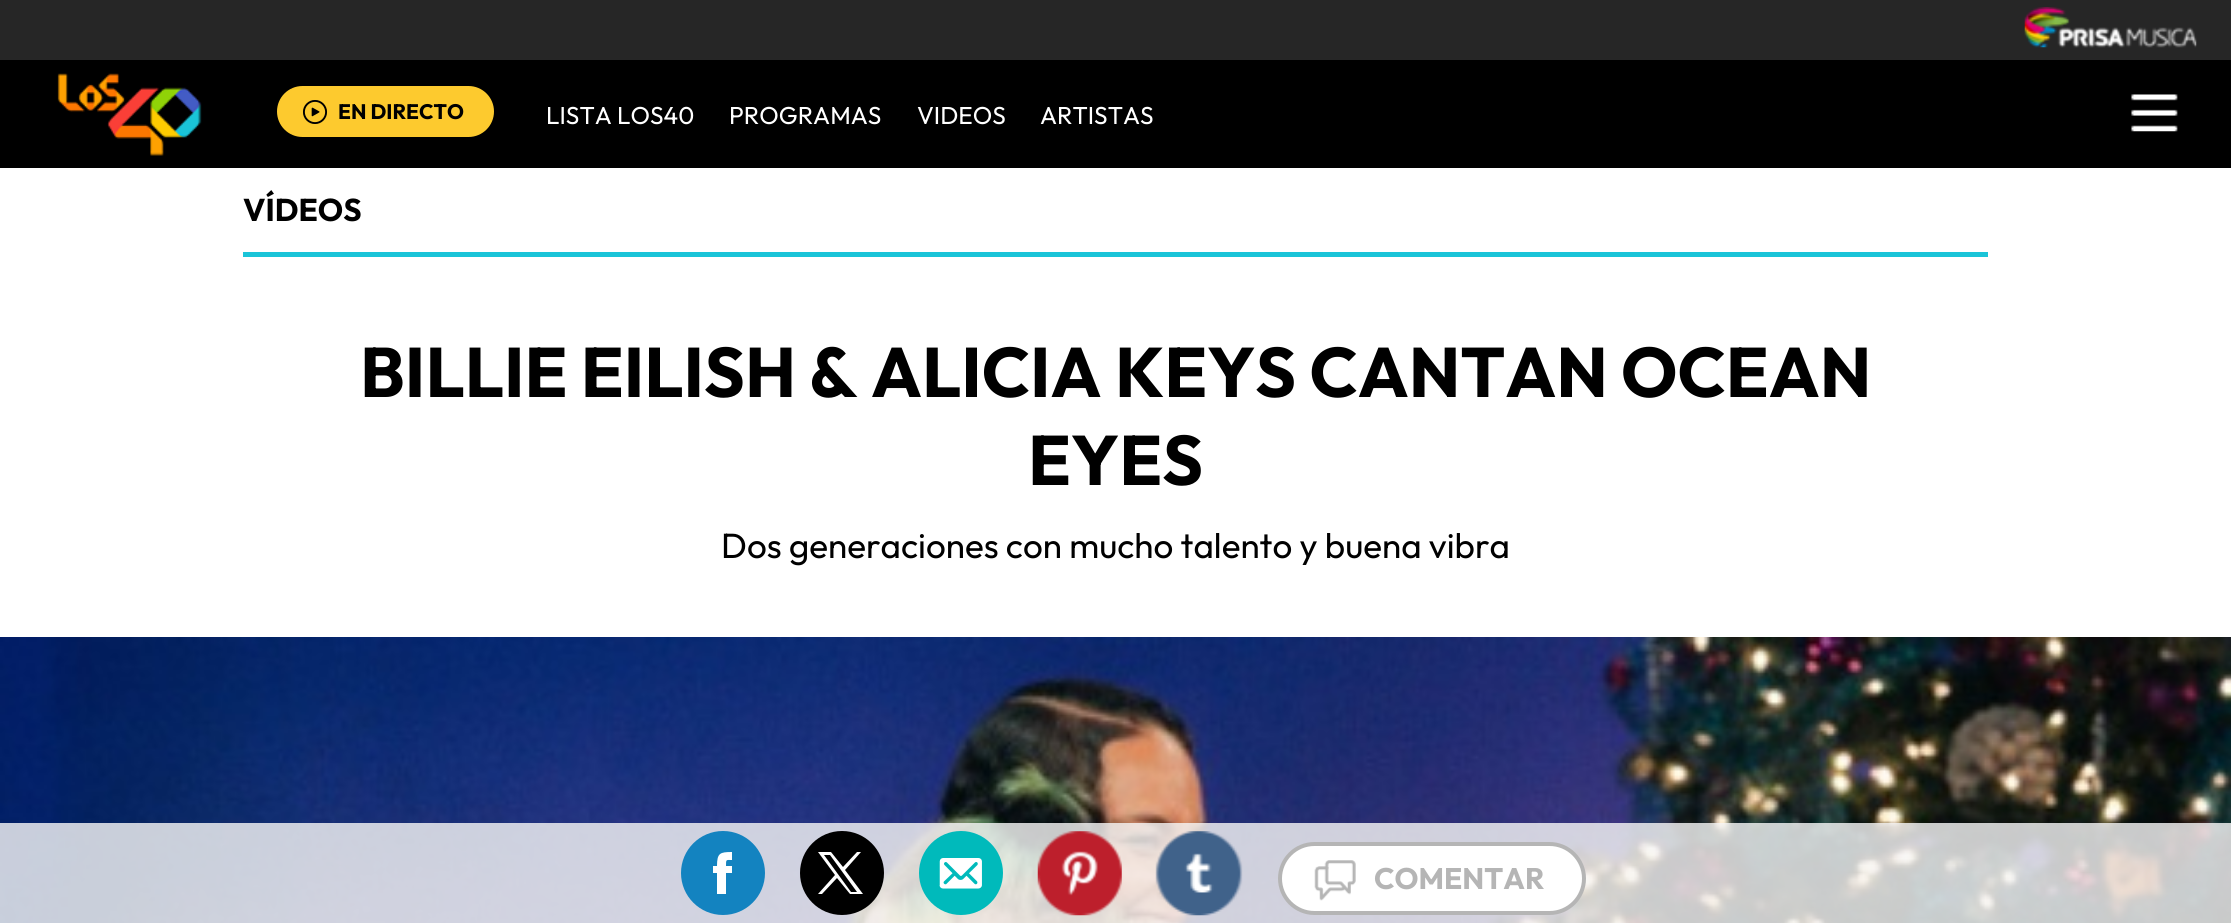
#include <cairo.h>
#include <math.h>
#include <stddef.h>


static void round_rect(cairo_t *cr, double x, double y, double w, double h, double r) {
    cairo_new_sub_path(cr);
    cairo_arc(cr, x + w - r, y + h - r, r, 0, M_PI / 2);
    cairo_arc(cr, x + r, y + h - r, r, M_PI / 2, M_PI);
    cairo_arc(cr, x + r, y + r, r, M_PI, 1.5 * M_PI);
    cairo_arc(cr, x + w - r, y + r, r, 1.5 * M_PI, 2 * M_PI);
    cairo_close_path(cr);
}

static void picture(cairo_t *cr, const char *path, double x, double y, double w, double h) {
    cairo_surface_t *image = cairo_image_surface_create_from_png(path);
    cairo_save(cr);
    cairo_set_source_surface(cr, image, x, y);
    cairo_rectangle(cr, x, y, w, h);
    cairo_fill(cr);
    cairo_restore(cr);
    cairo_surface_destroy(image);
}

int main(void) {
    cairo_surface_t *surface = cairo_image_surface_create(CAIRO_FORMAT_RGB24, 2231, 923);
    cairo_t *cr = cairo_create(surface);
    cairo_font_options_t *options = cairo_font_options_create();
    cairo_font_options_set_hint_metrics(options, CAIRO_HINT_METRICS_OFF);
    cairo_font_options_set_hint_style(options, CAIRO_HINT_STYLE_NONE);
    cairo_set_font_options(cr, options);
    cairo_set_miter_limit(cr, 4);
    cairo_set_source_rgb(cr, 1, 1, 1);
    cairo_paint(cr);
    cairo_set_source_rgb(cr, 0.149, 0.149, 0.149);
    cairo_rectangle(cr, 0, 0, 2231, 60);
    cairo_fill(cr);
    picture(cr, "img1.png", 2024, 7, 173, 41);
    cairo_set_source_rgb(cr, 0, 0, 0);
    cairo_rectangle(cr, 0, 60, 2231, 108);
    cairo_fill(cr);
    picture(cr, "img2.png", 57, 73, 145, 83);
    cairo_set_source_rgb(cr, 0.992, 0.792, 0.18);
    round_rect(cr, 277, 86, 217, 51, 25.5);
    cairo_fill(cr);
    picture(cr, "img3.png", 303, 100, 24, 24);
    cairo_select_font_face(cr, "Outfit", CAIRO_FONT_SLANT_NORMAL, CAIRO_FONT_WEIGHT_BOLD);
    cairo_set_font_size(cr, 21);
    cairo_set_source_rgb(cr, 0, 0, 0);
    cairo_move_to(cr, 338, 119);
    cairo_show_text(cr, "EN DIRECTO");
    cairo_select_font_face(cr, "Outfit", CAIRO_FONT_SLANT_NORMAL, CAIRO_FONT_WEIGHT_NORMAL);
    cairo_set_font_size(cr, 24.5);
    cairo_set_source_rgb(cr, 1, 1, 1);
    cairo_move_to(cr, 546, 124);
    cairo_show_text(cr, "LISTA LOS40");
    cairo_move_to(cr, 729, 124);
    cairo_show_text(cr, "PROGRAMAS");
    cairo_move_to(cr, 917, 124);
    cairo_show_text(cr, "VIDEOS");
    cairo_move_to(cr, 1040, 124);
    cairo_show_text(cr, "ARTISTAS");
    picture(cr, "img4.png", 2131, 94, 47, 38);
    cairo_set_source_rgb(cr, 0.102, 0.769, 0.847);
    cairo_rectangle(cr, 243, 252, 1745, 5);
    cairo_fill(cr);
    cairo_select_font_face(cr, "Outfit", CAIRO_FONT_SLANT_NORMAL, CAIRO_FONT_WEIGHT_BOLD);
    cairo_set_font_size(cr, 31.5);
    cairo_set_source_rgb(cr, 0, 0, 0);
    cairo_move_to(cr, 243, 221);
    cairo_show_text(cr, "VÍDEOS");
    cairo_set_font_size(cr, 70);
    cairo_move_to(cr, 360, 397);
    cairo_show_text(cr, "BILLIE EILISH & ALICIA KEYS CANTAN OCEAN");
    cairo_move_to(cr, 1028, 485);
    cairo_show_text(cr, "EYES");
    cairo_select_font_face(cr, "Outfit", CAIRO_FONT_SLANT_NORMAL, CAIRO_FONT_WEIGHT_NORMAL);
    cairo_set_font_size(cr, 35);
    cairo_move_to(cr, 721, 558);
    cairo_show_text(cr, "Dos generaciones con mucho talento y buena vibra");
    picture(cr, "img5.png", 0, 637, 2231, 286);
    cairo_set_source_rgba(cr, 0.965, 0.965, 0.965, 0.81);
    cairo_rectangle(cr, 0, 823, 2231, 100);
    cairo_fill(cr);
    cairo_set_source_rgb(cr, 0.075, 0.514, 0.753);
    cairo_arc(cr, 723, 873, 42, 0, 2 * M_PI);
    cairo_fill(cr);
    cairo_set_source_rgb(cr, 1, 1, 1);
    cairo_new_path(cr);
    cairo_move_to(cr, 726, 894);
    cairo_line_to(cr, 717, 894);
    cairo_line_to(cr, 717, 873);
    cairo_line_to(cr, 713, 873);
    cairo_line_to(cr, 713, 866);
    cairo_line_to(cr, 717, 866);
    cairo_curve_to(cr, 717, 853, 720, 852, 732, 852);
    cairo_line_to(cr, 732, 860);
    cairo_curve_to(cr, 726, 860, 726, 859, 726, 866);
    cairo_line_to(cr, 732, 866);
    cairo_line_to(cr, 732, 873);
    cairo_line_to(cr, 726, 873);
    cairo_close_path(cr);
    cairo_fill(cr);
    cairo_set_source_rgb(cr, 0, 0, 0);
    cairo_arc(cr, 842, 873, 42, 0, 2 * M_PI);
    cairo_fill(cr);
    cairo_set_source_rgb(cr, 1, 1, 1);
    cairo_new_path(cr);
    cairo_move_to(cr, 818, 852);
    cairo_line_to(cr, 835, 875);
    cairo_line_to(cr, 818, 894);
    cairo_line_to(cr, 822, 894);
    cairo_line_to(cr, 837, 878);
    cairo_line_to(cr, 850, 894);
    cairo_line_to(cr, 863, 894);
    cairo_line_to(cr, 845, 870);
    cairo_line_to(cr, 861, 852);
    cairo_line_to(cr, 857, 852);
    cairo_line_to(cr, 843, 867);
    cairo_line_to(cr, 831, 852);
    cairo_close_path(cr);
    cairo_move_to(cr, 824, 855);
    cairo_line_to(cr, 830, 855);
    cairo_line_to(cr, 857, 892);
    cairo_line_to(cr, 851, 892);
    cairo_close_path(cr);
    cairo_fill(cr);
    picture(cr, "img6.png", 919, 831, 84, 84);
    picture(cr, "img7.png", 1037, 831, 85, 85);
    picture(cr, "img8.png", 1155, 831, 88, 85);
    round_rect(cr, 1280, 844, 304, 69, 34.5);
    cairo_fill_preserve(cr);
    cairo_set_source_rgb(cr, 0.71, 0.71, 0.71);
    cairo_set_line_width(cr, 4);
    cairo_stroke(cr);
    picture(cr, "img9.png", 1314, 860, 42, 41);
    cairo_select_font_face(cr, "Outfit", CAIRO_FONT_SLANT_NORMAL, CAIRO_FONT_WEIGHT_BOLD);
    cairo_set_font_size(cr, 29.75);
    cairo_move_to(cr, 1374, 889);
    cairo_show_text(cr, "COMENTAR");
    cairo_surface_write_to_png(surface, "page.png");
    cairo_font_options_destroy(options);
    cairo_destroy(cr);
    cairo_surface_destroy(surface);
    return 0;
}
